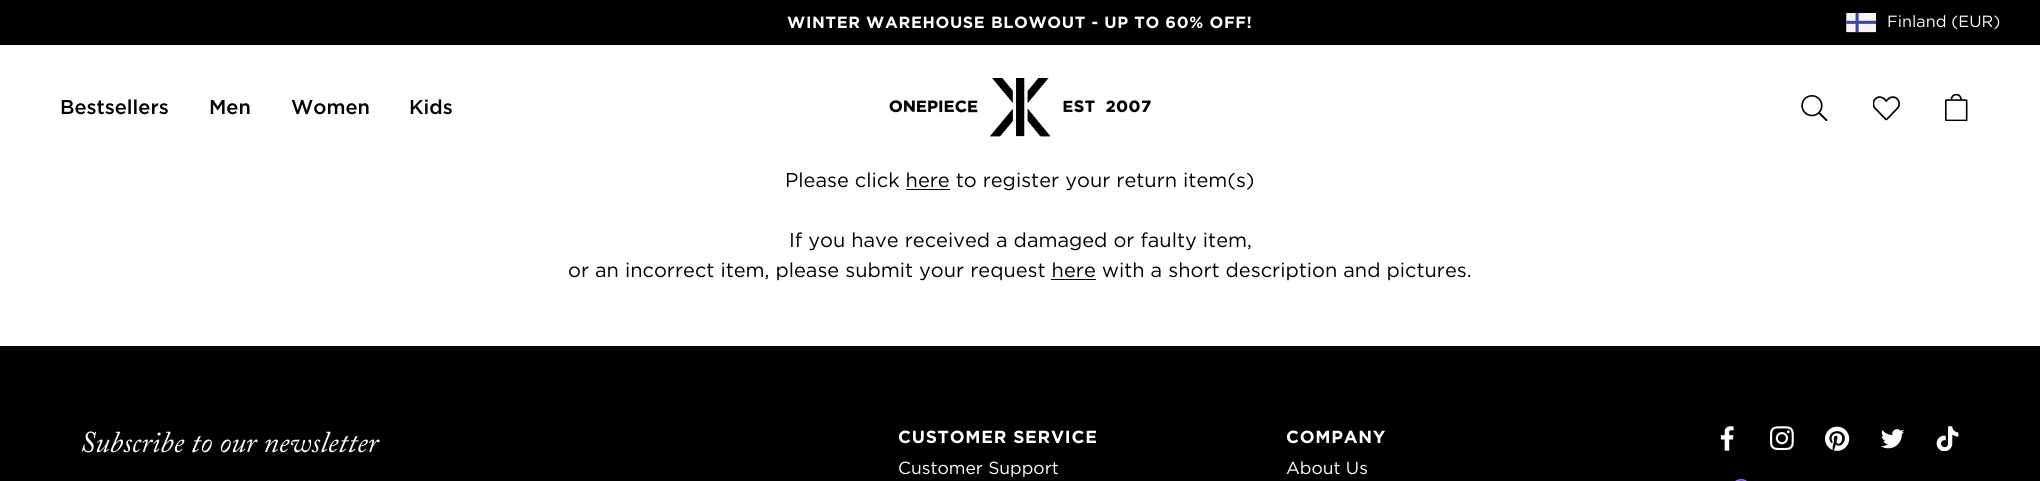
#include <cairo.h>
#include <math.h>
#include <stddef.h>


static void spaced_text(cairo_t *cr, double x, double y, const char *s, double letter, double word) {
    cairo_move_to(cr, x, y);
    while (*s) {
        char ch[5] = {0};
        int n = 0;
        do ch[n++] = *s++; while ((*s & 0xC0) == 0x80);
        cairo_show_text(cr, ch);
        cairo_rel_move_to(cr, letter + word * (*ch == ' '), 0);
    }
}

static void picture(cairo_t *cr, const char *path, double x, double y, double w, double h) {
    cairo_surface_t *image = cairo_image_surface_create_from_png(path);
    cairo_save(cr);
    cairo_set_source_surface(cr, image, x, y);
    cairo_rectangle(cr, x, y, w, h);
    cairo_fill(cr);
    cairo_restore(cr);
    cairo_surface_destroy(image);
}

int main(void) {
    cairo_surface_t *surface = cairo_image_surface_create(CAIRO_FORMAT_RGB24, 2040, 481);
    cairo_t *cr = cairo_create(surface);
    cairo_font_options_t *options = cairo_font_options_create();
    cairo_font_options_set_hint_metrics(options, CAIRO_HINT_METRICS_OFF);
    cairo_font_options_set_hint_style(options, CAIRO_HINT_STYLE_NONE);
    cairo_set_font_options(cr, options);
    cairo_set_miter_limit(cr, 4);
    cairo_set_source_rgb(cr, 1, 1, 1);
    cairo_paint(cr);
    cairo_set_source_rgb(cr, 0, 0, 0);
    cairo_rectangle(cr, 0, 0, 2040, 45);
    cairo_fill(cr);
    cairo_select_font_face(cr, "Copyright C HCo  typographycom", CAIRO_FONT_SLANT_NORMAL, CAIRO_FONT_WEIGHT_NORMAL);
    cairo_set_font_size(cr, 16.25);
    cairo_set_source_rgb(cr, 1, 1, 1);
    spaced_text(cr, 787, 28, "WINTER WAREHOUSE BLOWOUT - UP TO 60% OFF!", 0.65, 0);
    picture(cr, "img1.png", 1846, 13, 30, 20);
    cairo_select_font_face(cr, "Copyright C HCo  typographycom Light", CAIRO_FONT_SLANT_NORMAL, CAIRO_FONT_WEIGHT_NORMAL);
    cairo_move_to(cr, 1887, 27);
    cairo_show_text(cr, "Finland (EUR)");
    cairo_select_font_face(cr, "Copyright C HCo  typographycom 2 Light", CAIRO_FONT_SLANT_NORMAL, CAIRO_FONT_WEIGHT_NORMAL);
    cairo_set_font_size(cr, 20);
    cairo_set_source_rgb(cr, 0, 0, 0);
    cairo_move_to(cr, 60, 114);
    cairo_show_text(cr, "Bestsellers");
    cairo_move_to(cr, 209, 114);
    cairo_show_text(cr, "Men");
    cairo_move_to(cr, 291, 114);
    cairo_show_text(cr, "Women");
    cairo_move_to(cr, 409, 114);
    cairo_show_text(cr, "Kids");
    picture(cr, "img2.png", 889, 78, 262, 59);
    picture(cr, "img3.png", 1801, 95, 27, 26);
    picture(cr, "img4.png", 1873, 96, 27, 25);
    picture(cr, "img5.png", 1945, 94, 23, 27);
    cairo_select_font_face(cr, "Copyright C HCo  typographycom Light", CAIRO_FONT_SLANT_NORMAL, CAIRO_FONT_WEIGHT_NORMAL);
    cairo_move_to(cr, 785, 187);
    cairo_show_text(cr, "Please click here to register your return item(s)");
    cairo_rectangle(cr, 906, 189, 44, 1);
    cairo_fill(cr);
    cairo_move_to(cr, 789, 247);
    cairo_show_text(cr, "If you have received a damaged or faulty item,");
    cairo_move_to(cr, 568, 277);
    cairo_show_text(cr, "or an incorrect item, please submit your request here with a short description and pictures.");
    cairo_rectangle(cr, 1051, 279, 45, 1);
    cairo_fill(cr);
    cairo_rectangle(cr, 0, 346, 2040, 135);
    cairo_fill(cr);
    cairo_select_font_face(cr, "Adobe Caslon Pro", CAIRO_FONT_SLANT_ITALIC, CAIRO_FONT_WEIGHT_NORMAL);
    cairo_set_font_size(cr, 30);
    cairo_set_source_rgb(cr, 1, 1, 1);
    cairo_move_to(cr, 80, 452);
    cairo_show_text(cr, "Subscribe to our newsletter");
    cairo_select_font_face(cr, "Copyright C HCo  typographycom", CAIRO_FONT_SLANT_NORMAL, CAIRO_FONT_WEIGHT_NORMAL);
    cairo_set_font_size(cr, 17.5);
    spaced_text(cr, 898, 443, "CUSTOMER SERVICE", 0.75, 0);
    cairo_select_font_face(cr, "Copyright C HCo  typographycom Light", CAIRO_FONT_SLANT_NORMAL, CAIRO_FONT_WEIGHT_NORMAL);
    cairo_move_to(cr, 898, 474);
    cairo_show_text(cr, "Customer Support");
    cairo_select_font_face(cr, "Copyright C HCo  typographycom", CAIRO_FONT_SLANT_NORMAL, CAIRO_FONT_WEIGHT_NORMAL);
    spaced_text(cr, 1286, 443, "COMPANY", 0.75, 0);
    cairo_select_font_face(cr, "Copyright C HCo  typographycom Light", CAIRO_FONT_SLANT_NORMAL, CAIRO_FONT_WEIGHT_NORMAL);
    cairo_move_to(cr, 1286, 474);
    cairo_show_text(cr, "About Us");
    picture(cr, "img6.png", 1720, 426, 14, 25);
    picture(cr, "img7.png", 1770, 426, 24, 25);
    picture(cr, "img8.png", 1825, 426, 25, 25);
    picture(cr, "img9.png", 1881, 429, 24, 20);
    picture(cr, "img10.png", 1936, 426, 23, 25);
    picture(cr, "img11.png", 1735, 478, 12, 3);
    cairo_surface_write_to_png(surface, "page.png");
    cairo_font_options_destroy(options);
    cairo_destroy(cr);
    cairo_surface_destroy(surface);
    return 0;
}
